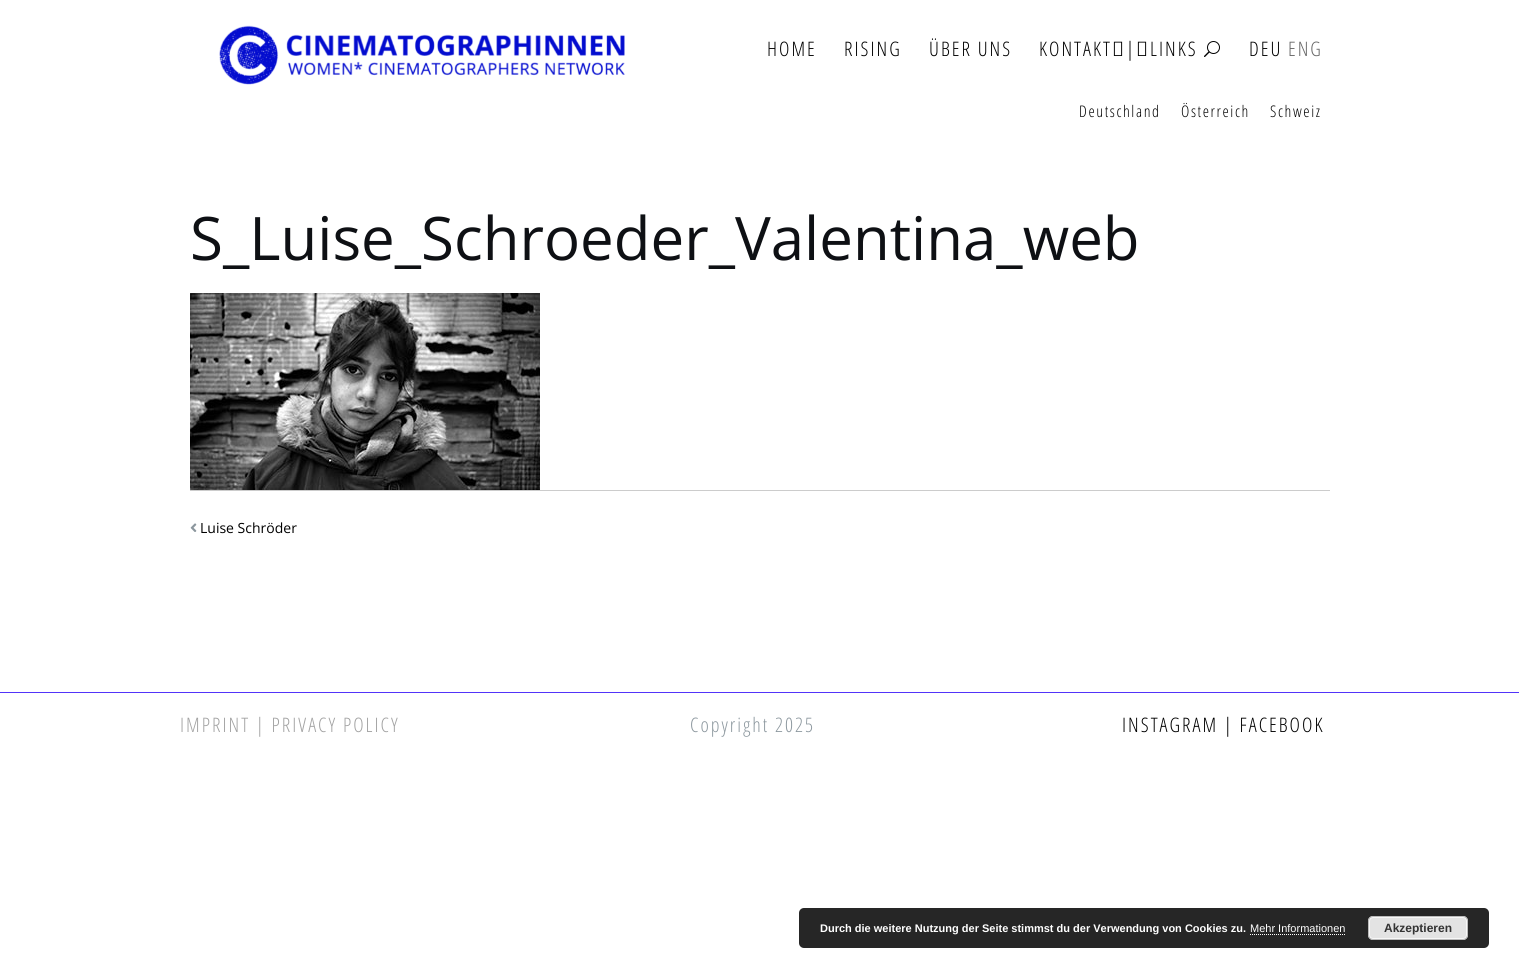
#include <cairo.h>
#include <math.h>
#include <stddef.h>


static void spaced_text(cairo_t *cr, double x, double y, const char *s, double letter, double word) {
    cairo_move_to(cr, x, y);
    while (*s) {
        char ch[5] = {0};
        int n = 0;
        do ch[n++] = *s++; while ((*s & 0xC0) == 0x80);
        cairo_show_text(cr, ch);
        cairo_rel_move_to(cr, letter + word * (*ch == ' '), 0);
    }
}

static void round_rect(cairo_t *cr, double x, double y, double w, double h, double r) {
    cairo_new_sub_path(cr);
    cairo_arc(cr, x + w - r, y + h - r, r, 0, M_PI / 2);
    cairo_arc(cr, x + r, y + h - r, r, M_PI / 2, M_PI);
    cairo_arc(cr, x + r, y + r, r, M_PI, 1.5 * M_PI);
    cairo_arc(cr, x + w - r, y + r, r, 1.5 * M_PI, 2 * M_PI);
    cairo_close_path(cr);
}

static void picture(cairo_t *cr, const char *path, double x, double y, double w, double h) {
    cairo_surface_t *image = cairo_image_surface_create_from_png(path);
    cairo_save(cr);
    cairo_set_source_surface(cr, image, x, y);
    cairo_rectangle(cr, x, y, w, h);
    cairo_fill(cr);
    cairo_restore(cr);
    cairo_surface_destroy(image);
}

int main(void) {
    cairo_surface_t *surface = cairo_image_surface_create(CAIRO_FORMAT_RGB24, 1519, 978);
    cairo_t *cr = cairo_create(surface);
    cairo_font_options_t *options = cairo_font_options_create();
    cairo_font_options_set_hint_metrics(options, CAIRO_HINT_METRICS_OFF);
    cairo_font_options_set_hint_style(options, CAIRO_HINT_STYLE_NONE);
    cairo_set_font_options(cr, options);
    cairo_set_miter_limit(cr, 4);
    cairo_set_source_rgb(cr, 1, 1, 1);
    cairo_paint(cr);
    picture(cr, "img1.png", 219, 25, 406, 60);
    cairo_select_font_face(cr, "Open Sans Condensed Light", CAIRO_FONT_SLANT_NORMAL, CAIRO_FONT_WEIGHT_NORMAL);
    cairo_set_font_size(cr, 20);
    cairo_set_source_rgb(cr, 0, 0, 0);
    spaced_text(cr, 767, 56, "HOME", 2, 0);
    spaced_text(cr, 844, 56, "RISING", 2, 0);
    spaced_text(cr, 929, 56, "ÜBER UNS", 2, 0);
    spaced_text(cr, 1039, 56, "KONTAKT | LINKS", 2, 0);
    picture(cr, "img2.png", 1204, 41, 16, 16);
    spaced_text(cr, 1249, 56, "DEU", 2, 0);
    cairo_set_source_rgb(cr, 0.4, 0.4, 0.4);
    spaced_text(cr, 1288, 56, "ENG", 2, 0);
    cairo_set_font_size(cr, 16);
    cairo_set_source_rgb(cr, 0, 0, 0);
    spaced_text(cr, 1079, 117, "Deutschland", 1.6, 0);
    spaced_text(cr, 1181, 117, "Österreich", 1.6, 0);
    spaced_text(cr, 1270, 117, "Schweiz", 1.6, 0);
    cairo_select_font_face(cr, "Open Sans", CAIRO_FONT_SLANT_NORMAL, CAIRO_FONT_WEIGHT_NORMAL);
    cairo_set_font_size(cr, 60);
    cairo_set_source_rgb(cr, 0.055, 0.063, 0.082);
    cairo_move_to(cr, 190, 260);
    cairo_show_text(cr, "S_Luise_Schroeder_Valentina_web");
    picture(cr, "img3.png", 190, 293, 350, 197);
    cairo_set_source_rgb(cr, 0.8, 0.8, 0.8);
    cairo_rectangle(cr, 190, 490, 1140, 1);
    cairo_fill(cr);
    picture(cr, "img4.png", 190, 523, 7, 9);
    cairo_set_font_size(cr, 14);
    cairo_set_source_rgb(cr, 0, 0, 0);
    cairo_move_to(cr, 200, 533);
    cairo_show_text(cr, "Luise Schröder");
    cairo_set_source_rgb(cr, 0.322, 0.204, 0.976);
    cairo_rectangle(cr, 0, 692, 1519, 1);
    cairo_fill(cr);
    cairo_select_font_face(cr, "Open Sans Condensed Light", CAIRO_FONT_SLANT_NORMAL, CAIRO_FONT_WEIGHT_NORMAL);
    cairo_set_font_size(cr, 20);
    cairo_set_source_rgb(cr, 0.635, 0.635, 0.635);
    spaced_text(cr, 180, 732, "IMPRINT | PRIVACY POLICY", 2, 0);
    cairo_set_source_rgb(cr, 0.549, 0.592, 0.62);
    spaced_text(cr, 690, 732, "Copyright 2025", 2, 0);
    cairo_set_source_rgb(cr, 0, 0, 0);
    spaced_text(cr, 1122, 732, "INSTAGRAM | FACEBOOK", 2, 0);
    cairo_set_source_rgb(cr, 0.149, 0.149, 0.149);
    round_rect(cr, 799, 908, 690, 40, 5);
    cairo_fill(cr);
    cairo_select_font_face(cr, "Liberation Sans", CAIRO_FONT_SLANT_NORMAL, CAIRO_FONT_WEIGHT_BOLD);
    cairo_set_font_size(cr, 11);
    cairo_set_source_rgb(cr, 1, 1, 1);
    cairo_move_to(cr, 820, 932);
    cairo_show_text(cr, "Durch die weitere Nutzung der Seite stimmst du der Verwendung von Cookies zu.");
    cairo_select_font_face(cr, "Liberation Sans", CAIRO_FONT_SLANT_NORMAL, CAIRO_FONT_WEIGHT_NORMAL);
    cairo_move_to(cr, 1250, 932);
    cairo_show_text(cr, "Mehr Informationen");
    cairo_new_path(cr);
    cairo_move_to(cr, 1250, 934.5);
    cairo_line_to(cr, 1345, 934.5);
    cairo_set_line_width(cr, 1);
    cairo_set_dash(cr, (double[]){1, 1}, 2, 0);
    cairo_stroke(cr);
    cairo_set_source_rgb(cr, 0.89, 0.89, 0.89);
    round_rect(cr, 1368, 916, 100, 24, 5);
    cairo_fill(cr);
    round_rect(cr, 1369.5, 917.5, 97, 21, 3.5);
    cairo_set_source_rgb(cr, 0.965, 0.965, 0.965);
    cairo_set_dash(cr, NULL, 0, 0);
    cairo_stroke(cr);
    round_rect(cr, 1368.5, 916.5, 99, 23, 4.5);
    cairo_set_source_rgb(cr, 0.733, 0.733, 0.733);
    cairo_stroke(cr);
    cairo_select_font_face(cr, "Liberation Sans", CAIRO_FONT_SLANT_NORMAL, CAIRO_FONT_WEIGHT_BOLD);
    cairo_set_font_size(cr, 12);
    cairo_set_source_rgb(cr, 0.2, 0.2, 0.2);
    cairo_move_to(cr, 1384, 932);
    cairo_show_text(cr, "Akzeptieren");
    cairo_surface_write_to_png(surface, "page.png");
    cairo_font_options_destroy(options);
    cairo_destroy(cr);
    cairo_surface_destroy(surface);
    return 0;
}
